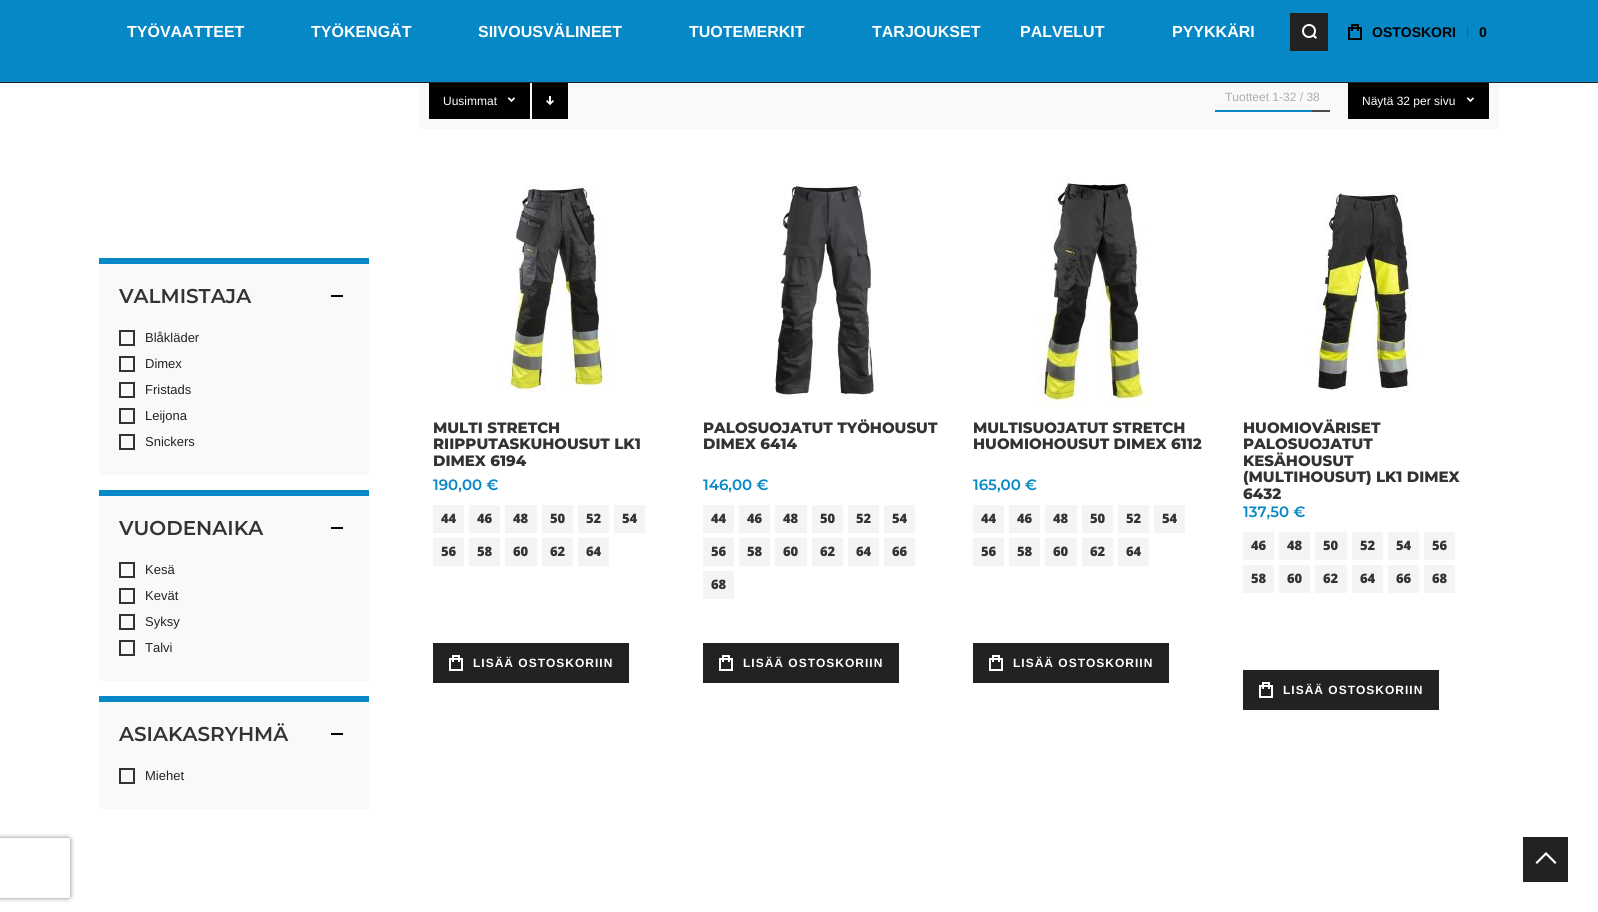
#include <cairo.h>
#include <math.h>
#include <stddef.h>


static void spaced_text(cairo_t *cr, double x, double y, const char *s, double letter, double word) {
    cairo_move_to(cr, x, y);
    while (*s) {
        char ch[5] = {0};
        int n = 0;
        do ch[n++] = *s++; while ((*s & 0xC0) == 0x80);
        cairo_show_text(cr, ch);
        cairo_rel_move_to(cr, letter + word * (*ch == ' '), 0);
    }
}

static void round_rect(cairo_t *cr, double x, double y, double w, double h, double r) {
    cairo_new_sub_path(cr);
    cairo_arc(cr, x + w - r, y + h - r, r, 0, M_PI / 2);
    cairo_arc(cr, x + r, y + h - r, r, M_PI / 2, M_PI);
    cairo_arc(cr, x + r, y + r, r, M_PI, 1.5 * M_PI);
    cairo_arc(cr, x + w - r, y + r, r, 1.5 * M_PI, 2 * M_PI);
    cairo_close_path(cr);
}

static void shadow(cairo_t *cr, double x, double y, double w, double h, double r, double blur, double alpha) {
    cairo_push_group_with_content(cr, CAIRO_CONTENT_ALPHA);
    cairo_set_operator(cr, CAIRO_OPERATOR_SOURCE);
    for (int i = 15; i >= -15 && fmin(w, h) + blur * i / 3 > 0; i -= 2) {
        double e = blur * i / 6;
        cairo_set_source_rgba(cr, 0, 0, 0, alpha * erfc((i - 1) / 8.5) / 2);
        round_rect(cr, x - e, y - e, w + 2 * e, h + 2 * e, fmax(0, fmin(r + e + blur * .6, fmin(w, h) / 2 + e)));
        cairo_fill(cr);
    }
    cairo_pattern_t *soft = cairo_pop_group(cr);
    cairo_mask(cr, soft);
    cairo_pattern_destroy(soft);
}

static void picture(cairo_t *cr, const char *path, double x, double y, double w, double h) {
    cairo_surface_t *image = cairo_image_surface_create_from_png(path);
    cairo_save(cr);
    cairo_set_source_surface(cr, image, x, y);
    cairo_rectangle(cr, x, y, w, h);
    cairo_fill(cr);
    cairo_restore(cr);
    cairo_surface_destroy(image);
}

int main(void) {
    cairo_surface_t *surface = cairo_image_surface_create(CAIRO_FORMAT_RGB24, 1598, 912);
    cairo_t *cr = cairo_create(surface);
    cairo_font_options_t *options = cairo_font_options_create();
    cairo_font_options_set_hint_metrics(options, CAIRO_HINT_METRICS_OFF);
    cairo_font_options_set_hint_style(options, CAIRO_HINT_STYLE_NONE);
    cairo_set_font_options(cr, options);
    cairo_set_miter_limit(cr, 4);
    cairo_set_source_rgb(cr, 1, 1, 1);
    cairo_paint(cr);
    cairo_set_source_rgb(cr, 0.024, 0.533, 0.776);
    cairo_rectangle(cr, 0, 0, 1598, 82);
    cairo_fill(cr);
    cairo_set_source_rgb(cr, 0.133, 0.133, 0.133);
    cairo_rectangle(cr, 0, 82, 1598, 1);
    cairo_fill(cr);
    cairo_select_font_face(cr, "Liberation Sans", CAIRO_FONT_SLANT_NORMAL, CAIRO_FONT_WEIGHT_BOLD);
    cairo_set_font_size(cr, 16);
    cairo_set_source_rgb(cr, 1, 1, 1);
    cairo_move_to(cr, 127, 37);
    cairo_show_text(cr, "TYÖVAATTEET");
    cairo_move_to(cr, 311, 37);
    cairo_show_text(cr, "TYÖKENGÄT");
    cairo_move_to(cr, 478, 37);
    cairo_show_text(cr, "SIIVOUSVÄLINEET");
    cairo_move_to(cr, 689, 37);
    cairo_show_text(cr, "TUOTEMERKIT");
    cairo_move_to(cr, 872, 37);
    cairo_show_text(cr, "TARJOUKSET");
    cairo_move_to(cr, 1020, 37);
    cairo_show_text(cr, "PALVELUT");
    cairo_move_to(cr, 1172, 37);
    cairo_show_text(cr, "PYYKKÄRI");
    cairo_set_source_rgb(cr, 0.133, 0.133, 0.133);
    cairo_rectangle(cr, 1290, 13, 38, 38);
    cairo_fill(cr);
    picture(cr, "img1.png", 1302, 24, 15, 15);
    picture(cr, "img2.png", 1348, 24, 14, 16);
    cairo_set_font_size(cr, 14);
    cairo_set_source_rgb(cr, 0, 0, 0);
    cairo_move_to(cr, 1372, 37);
    cairo_show_text(cr, "OSTOSKORI");
    cairo_set_source_rgb(cr, 0.02, 0.42, 0.612);
    cairo_rectangle(cr, 1467, 26, 1, 12);
    cairo_fill(cr);
    cairo_set_source_rgb(cr, 0, 0, 0);
    cairo_move_to(cr, 1479, 37);
    cairo_show_text(cr, "0");
    cairo_set_source_rgb(cr, 0.973, 0.973, 0.973);
    cairo_rectangle(cr, 99, 264, 270, 211);
    cairo_fill(cr);
    cairo_set_source_rgb(cr, 0.024, 0.533, 0.776);
    cairo_rectangle(cr, 99, 258, 270, 6);
    cairo_fill(cr);
    cairo_select_font_face(cr, "Montserrat SemiBold", CAIRO_FONT_SLANT_NORMAL, CAIRO_FONT_WEIGHT_NORMAL);
    cairo_set_font_size(cr, 20);
    cairo_set_source_rgb(cr, 0.2, 0.2, 0.2);
    cairo_move_to(cr, 119, 303);
    cairo_show_text(cr, "VALMISTAJA");
    cairo_set_source_rgb(cr, 0, 0, 0);
    cairo_rectangle(cr, 331, 295, 12, 2);
    cairo_fill(cr);
    cairo_rectangle(cr, 120, 331, 14, 14);
    cairo_set_source_rgb(cr, 0.2, 0.2, 0.2);
    cairo_stroke(cr);
    cairo_select_font_face(cr, "Liberation Sans", CAIRO_FONT_SLANT_NORMAL, CAIRO_FONT_WEIGHT_NORMAL);
    cairo_set_font_size(cr, 13);
    cairo_set_source_rgb(cr, 0.133, 0.133, 0.133);
    cairo_move_to(cr, 145, 342);
    cairo_show_text(cr, "Blåkläder");
    cairo_rectangle(cr, 120, 357, 14, 14);
    cairo_set_source_rgb(cr, 0.2, 0.2, 0.2);
    cairo_stroke(cr);
    cairo_set_source_rgb(cr, 0.133, 0.133, 0.133);
    cairo_move_to(cr, 145, 368);
    cairo_show_text(cr, "Dimex");
    cairo_rectangle(cr, 120, 383, 14, 14);
    cairo_set_source_rgb(cr, 0.2, 0.2, 0.2);
    cairo_stroke(cr);
    cairo_set_source_rgb(cr, 0.133, 0.133, 0.133);
    cairo_move_to(cr, 145, 394);
    cairo_show_text(cr, "Fristads");
    cairo_rectangle(cr, 120, 409, 14, 14);
    cairo_set_source_rgb(cr, 0.2, 0.2, 0.2);
    cairo_stroke(cr);
    cairo_set_source_rgb(cr, 0.133, 0.133, 0.133);
    cairo_move_to(cr, 145, 420);
    cairo_show_text(cr, "Leijona");
    cairo_rectangle(cr, 120, 435, 14, 14);
    cairo_set_source_rgb(cr, 0.2, 0.2, 0.2);
    cairo_stroke(cr);
    cairo_set_source_rgb(cr, 0.133, 0.133, 0.133);
    cairo_move_to(cr, 145, 446);
    cairo_show_text(cr, "Snickers");
    cairo_set_source_rgb(cr, 0.973, 0.973, 0.973);
    cairo_rectangle(cr, 99, 496, 270, 185);
    cairo_fill(cr);
    cairo_set_source_rgb(cr, 0.024, 0.533, 0.776);
    cairo_rectangle(cr, 99, 490, 270, 6);
    cairo_fill(cr);
    cairo_select_font_face(cr, "Montserrat SemiBold", CAIRO_FONT_SLANT_NORMAL, CAIRO_FONT_WEIGHT_NORMAL);
    cairo_set_font_size(cr, 20);
    cairo_set_source_rgb(cr, 0.2, 0.2, 0.2);
    cairo_move_to(cr, 119, 535);
    cairo_show_text(cr, "VUODENAIKA");
    cairo_set_source_rgb(cr, 0, 0, 0);
    cairo_rectangle(cr, 331, 527, 12, 2);
    cairo_fill(cr);
    cairo_rectangle(cr, 120, 563, 14, 14);
    cairo_set_source_rgb(cr, 0.2, 0.2, 0.2);
    cairo_stroke(cr);
    cairo_select_font_face(cr, "Liberation Sans", CAIRO_FONT_SLANT_NORMAL, CAIRO_FONT_WEIGHT_NORMAL);
    cairo_set_font_size(cr, 13);
    cairo_set_source_rgb(cr, 0.133, 0.133, 0.133);
    cairo_move_to(cr, 145, 574);
    cairo_show_text(cr, "Kesä");
    cairo_rectangle(cr, 120, 589, 14, 14);
    cairo_set_source_rgb(cr, 0.2, 0.2, 0.2);
    cairo_stroke(cr);
    cairo_set_source_rgb(cr, 0.133, 0.133, 0.133);
    cairo_move_to(cr, 145, 600);
    cairo_show_text(cr, "Kevät");
    cairo_rectangle(cr, 120, 615, 14, 14);
    cairo_set_source_rgb(cr, 0.2, 0.2, 0.2);
    cairo_stroke(cr);
    cairo_set_source_rgb(cr, 0.133, 0.133, 0.133);
    cairo_move_to(cr, 145, 626);
    cairo_show_text(cr, "Syksy");
    cairo_rectangle(cr, 120, 641, 14, 14);
    cairo_set_source_rgb(cr, 0.2, 0.2, 0.2);
    cairo_stroke(cr);
    cairo_set_source_rgb(cr, 0.133, 0.133, 0.133);
    cairo_move_to(cr, 145, 652);
    cairo_show_text(cr, "Talvi");
    cairo_set_source_rgb(cr, 0.973, 0.973, 0.973);
    cairo_rectangle(cr, 99, 702, 270, 107);
    cairo_fill(cr);
    cairo_set_source_rgb(cr, 0.024, 0.533, 0.776);
    cairo_rectangle(cr, 99, 696, 270, 6);
    cairo_fill(cr);
    cairo_select_font_face(cr, "Montserrat SemiBold", CAIRO_FONT_SLANT_NORMAL, CAIRO_FONT_WEIGHT_NORMAL);
    cairo_set_font_size(cr, 20);
    cairo_set_source_rgb(cr, 0.2, 0.2, 0.2);
    cairo_move_to(cr, 119, 741);
    cairo_show_text(cr, "ASIAKASRYHMÄ");
    cairo_set_source_rgb(cr, 0, 0, 0);
    cairo_rectangle(cr, 331, 733, 12, 2);
    cairo_fill(cr);
    cairo_rectangle(cr, 120, 769, 14, 14);
    cairo_set_source_rgb(cr, 0.2, 0.2, 0.2);
    cairo_stroke(cr);
    cairo_select_font_face(cr, "Liberation Sans", CAIRO_FONT_SLANT_NORMAL, CAIRO_FONT_WEIGHT_NORMAL);
    cairo_set_font_size(cr, 13);
    cairo_set_source_rgb(cr, 0.133, 0.133, 0.133);
    cairo_move_to(cr, 145, 780);
    cairo_show_text(cr, "Miehet");
    cairo_set_source_rgb(cr, 0.973, 0.973, 0.973);
    cairo_rectangle(cr, 419, 83, 1080, 46);
    cairo_fill(cr);
    cairo_set_source_rgb(cr, 0, 0, 0);
    cairo_rectangle(cr, 429, 83, 101, 36);
    cairo_fill(cr);
    cairo_set_font_size(cr, 12);
    cairo_set_source_rgb(cr, 1, 1, 1);
    cairo_move_to(cr, 443, 105);
    cairo_show_text(cr, "Uusimmat");
    picture(cr, "img3.png", 507, 97, 8, 6);
    cairo_set_source_rgb(cr, 0, 0, 0);
    cairo_rectangle(cr, 532, 83, 36, 36);
    cairo_fill(cr);
    picture(cr, "img4.png", 546, 96, 8, 9);
    cairo_set_source_rgb(cr, 0.675, 0.675, 0.675);
    cairo_move_to(cr, 1225, 101);
    cairo_show_text(cr, "Tuotteet 1-32 / 38");
    cairo_set_source_rgb(cr, 0.302, 0.302, 0.302);
    cairo_rectangle(cr, 1312, 110, 18, 2);
    cairo_fill(cr);
    cairo_set_source_rgb(cr, 0.024, 0.533, 0.776);
    cairo_rectangle(cr, 1215, 110, 97, 2);
    cairo_fill(cr);
    cairo_set_source_rgb(cr, 0, 0, 0);
    cairo_rectangle(cr, 1348, 83, 141, 36);
    cairo_fill(cr);
    cairo_set_source_rgb(cr, 1, 1, 1);
    cairo_move_to(cr, 1362, 105);
    cairo_show_text(cr, "Näytä 32 per sivu");
    picture(cr, "img3.png", 1466, 97, 8, 6);
    picture(cr, "img5.png", 498, 184, 113, 208);
    cairo_select_font_face(cr, "Montserrat ExtraBold", CAIRO_FONT_SLANT_NORMAL, CAIRO_FONT_WEIGHT_NORMAL);
    cairo_set_font_size(cr, 15);
    cairo_set_source_rgb(cr, 0.2, 0.2, 0.2);
    cairo_move_to(cr, 433, 433);
    cairo_show_text(cr, "MULTI STRETCH");
    cairo_move_to(cr, 433, 449);
    cairo_show_text(cr, "RIIPPUTASKUHOUSUT LK1");
    cairo_move_to(cr, 433, 466);
    cairo_show_text(cr, "DIMEX 6194");
    cairo_select_font_face(cr, "Montserrat SemiBold", CAIRO_FONT_SLANT_NORMAL, CAIRO_FONT_WEIGHT_NORMAL);
    cairo_set_source_rgb(cr, 0.024, 0.533, 0.776);
    cairo_move_to(cr, 433, 490);
    cairo_show_text(cr, "190,00 €");
    cairo_set_source_rgb(cr, 0.957, 0.957, 0.957);
    cairo_rectangle(cr, 433, 505, 31, 28);
    cairo_fill(cr);
    cairo_select_font_face(cr, "Open Sans ExtraBold", CAIRO_FONT_SLANT_NORMAL, CAIRO_FONT_WEIGHT_NORMAL);
    cairo_set_font_size(cr, 13);
    cairo_set_source_rgb(cr, 0.2, 0.2, 0.2);
    cairo_move_to(cr, 441, 523);
    cairo_show_text(cr, "44");
    cairo_set_source_rgb(cr, 0.957, 0.957, 0.957);
    cairo_rectangle(cr, 469, 505, 31, 28);
    cairo_fill(cr);
    cairo_set_source_rgb(cr, 0.2, 0.2, 0.2);
    cairo_move_to(cr, 477, 523);
    cairo_show_text(cr, "46");
    cairo_set_source_rgb(cr, 0.957, 0.957, 0.957);
    cairo_rectangle(cr, 505, 505, 32, 28);
    cairo_fill(cr);
    cairo_set_source_rgb(cr, 0.2, 0.2, 0.2);
    cairo_move_to(cr, 513, 523);
    cairo_show_text(cr, "48");
    cairo_set_source_rgb(cr, 0.957, 0.957, 0.957);
    cairo_rectangle(cr, 542, 505, 31, 28);
    cairo_fill(cr);
    cairo_set_source_rgb(cr, 0.2, 0.2, 0.2);
    cairo_move_to(cr, 550, 523);
    cairo_show_text(cr, "50");
    cairo_set_source_rgb(cr, 0.957, 0.957, 0.957);
    cairo_rectangle(cr, 578, 505, 31, 28);
    cairo_fill(cr);
    cairo_set_source_rgb(cr, 0.2, 0.2, 0.2);
    cairo_move_to(cr, 586, 523);
    cairo_show_text(cr, "52");
    cairo_set_source_rgb(cr, 0.957, 0.957, 0.957);
    cairo_rectangle(cr, 614, 505, 31, 28);
    cairo_fill(cr);
    cairo_set_source_rgb(cr, 0.2, 0.2, 0.2);
    cairo_move_to(cr, 622, 523);
    cairo_show_text(cr, "54");
    cairo_set_source_rgb(cr, 0.957, 0.957, 0.957);
    cairo_rectangle(cr, 433, 538, 31, 28);
    cairo_fill(cr);
    cairo_set_source_rgb(cr, 0.2, 0.2, 0.2);
    cairo_move_to(cr, 441, 556);
    cairo_show_text(cr, "56");
    cairo_set_source_rgb(cr, 0.957, 0.957, 0.957);
    cairo_rectangle(cr, 469, 538, 31, 28);
    cairo_fill(cr);
    cairo_set_source_rgb(cr, 0.2, 0.2, 0.2);
    cairo_move_to(cr, 477, 556);
    cairo_show_text(cr, "58");
    cairo_set_source_rgb(cr, 0.957, 0.957, 0.957);
    cairo_rectangle(cr, 505, 538, 32, 28);
    cairo_fill(cr);
    cairo_set_source_rgb(cr, 0.2, 0.2, 0.2);
    cairo_move_to(cr, 513, 556);
    cairo_show_text(cr, "60");
    cairo_set_source_rgb(cr, 0.957, 0.957, 0.957);
    cairo_rectangle(cr, 542, 538, 31, 28);
    cairo_fill(cr);
    cairo_set_source_rgb(cr, 0.2, 0.2, 0.2);
    cairo_move_to(cr, 550, 556);
    cairo_show_text(cr, "62");
    cairo_set_source_rgb(cr, 0.957, 0.957, 0.957);
    cairo_rectangle(cr, 578, 538, 31, 28);
    cairo_fill(cr);
    cairo_set_source_rgb(cr, 0.2, 0.2, 0.2);
    cairo_move_to(cr, 586, 556);
    cairo_show_text(cr, "64");
    cairo_set_source_rgb(cr, 0.133, 0.133, 0.133);
    cairo_rectangle(cr, 433, 643, 196, 40);
    cairo_fill(cr);
    picture(cr, "img6.png", 449, 655, 14, 16);
    cairo_select_font_face(cr, "Liberation Sans", CAIRO_FONT_SLANT_NORMAL, CAIRO_FONT_WEIGHT_BOLD);
    cairo_set_font_size(cr, 12);
    cairo_set_source_rgb(cr, 1, 1, 1);
    spaced_text(cr, 473, 667, "LISÄÄ OSTOSKORIIN", 1, 0);
    picture(cr, "img7.png", 768, 184, 112, 216);
    cairo_select_font_face(cr, "Montserrat ExtraBold", CAIRO_FONT_SLANT_NORMAL, CAIRO_FONT_WEIGHT_NORMAL);
    cairo_set_font_size(cr, 15);
    cairo_set_source_rgb(cr, 0.2, 0.2, 0.2);
    cairo_move_to(cr, 703, 433);
    cairo_show_text(cr, "PALOSUOJATUT TYÖHOUSUT");
    cairo_move_to(cr, 703, 449);
    cairo_show_text(cr, "DIMEX 6414");
    cairo_select_font_face(cr, "Montserrat SemiBold", CAIRO_FONT_SLANT_NORMAL, CAIRO_FONT_WEIGHT_NORMAL);
    cairo_set_source_rgb(cr, 0.024, 0.533, 0.776);
    cairo_move_to(cr, 703, 490);
    cairo_show_text(cr, "146,00 €");
    cairo_set_source_rgb(cr, 0.957, 0.957, 0.957);
    cairo_rectangle(cr, 703, 505, 31, 28);
    cairo_fill(cr);
    cairo_select_font_face(cr, "Open Sans ExtraBold", CAIRO_FONT_SLANT_NORMAL, CAIRO_FONT_WEIGHT_NORMAL);
    cairo_set_font_size(cr, 13);
    cairo_set_source_rgb(cr, 0.2, 0.2, 0.2);
    cairo_move_to(cr, 711, 523);
    cairo_show_text(cr, "44");
    cairo_set_source_rgb(cr, 0.957, 0.957, 0.957);
    cairo_rectangle(cr, 739, 505, 31, 28);
    cairo_fill(cr);
    cairo_set_source_rgb(cr, 0.2, 0.2, 0.2);
    cairo_move_to(cr, 747, 523);
    cairo_show_text(cr, "46");
    cairo_set_source_rgb(cr, 0.957, 0.957, 0.957);
    cairo_rectangle(cr, 775, 505, 32, 28);
    cairo_fill(cr);
    cairo_set_source_rgb(cr, 0.2, 0.2, 0.2);
    cairo_move_to(cr, 783, 523);
    cairo_show_text(cr, "48");
    cairo_set_source_rgb(cr, 0.957, 0.957, 0.957);
    cairo_rectangle(cr, 812, 505, 31, 28);
    cairo_fill(cr);
    cairo_set_source_rgb(cr, 0.2, 0.2, 0.2);
    cairo_move_to(cr, 820, 523);
    cairo_show_text(cr, "50");
    cairo_set_source_rgb(cr, 0.957, 0.957, 0.957);
    cairo_rectangle(cr, 848, 505, 31, 28);
    cairo_fill(cr);
    cairo_set_source_rgb(cr, 0.2, 0.2, 0.2);
    cairo_move_to(cr, 856, 523);
    cairo_show_text(cr, "52");
    cairo_set_source_rgb(cr, 0.957, 0.957, 0.957);
    cairo_rectangle(cr, 884, 505, 31, 28);
    cairo_fill(cr);
    cairo_set_source_rgb(cr, 0.2, 0.2, 0.2);
    cairo_move_to(cr, 892, 523);
    cairo_show_text(cr, "54");
    cairo_set_source_rgb(cr, 0.957, 0.957, 0.957);
    cairo_rectangle(cr, 703, 538, 31, 28);
    cairo_fill(cr);
    cairo_set_source_rgb(cr, 0.2, 0.2, 0.2);
    cairo_move_to(cr, 711, 556);
    cairo_show_text(cr, "56");
    cairo_set_source_rgb(cr, 0.957, 0.957, 0.957);
    cairo_rectangle(cr, 739, 538, 31, 28);
    cairo_fill(cr);
    cairo_set_source_rgb(cr, 0.2, 0.2, 0.2);
    cairo_move_to(cr, 747, 556);
    cairo_show_text(cr, "58");
    cairo_set_source_rgb(cr, 0.957, 0.957, 0.957);
    cairo_rectangle(cr, 775, 538, 32, 28);
    cairo_fill(cr);
    cairo_set_source_rgb(cr, 0.2, 0.2, 0.2);
    cairo_move_to(cr, 783, 556);
    cairo_show_text(cr, "60");
    cairo_set_source_rgb(cr, 0.957, 0.957, 0.957);
    cairo_rectangle(cr, 812, 538, 31, 28);
    cairo_fill(cr);
    cairo_set_source_rgb(cr, 0.2, 0.2, 0.2);
    cairo_move_to(cr, 820, 556);
    cairo_show_text(cr, "62");
    cairo_set_source_rgb(cr, 0.957, 0.957, 0.957);
    cairo_rectangle(cr, 848, 538, 31, 28);
    cairo_fill(cr);
    cairo_set_source_rgb(cr, 0.2, 0.2, 0.2);
    cairo_move_to(cr, 856, 556);
    cairo_show_text(cr, "64");
    cairo_set_source_rgb(cr, 0.957, 0.957, 0.957);
    cairo_rectangle(cr, 884, 538, 31, 28);
    cairo_fill(cr);
    cairo_set_source_rgb(cr, 0.2, 0.2, 0.2);
    cairo_move_to(cr, 892, 556);
    cairo_show_text(cr, "66");
    cairo_set_source_rgb(cr, 0.957, 0.957, 0.957);
    cairo_rectangle(cr, 703, 571, 31, 28);
    cairo_fill(cr);
    cairo_set_source_rgb(cr, 0.2, 0.2, 0.2);
    cairo_move_to(cr, 711, 589);
    cairo_show_text(cr, "68");
    cairo_set_source_rgb(cr, 0.133, 0.133, 0.133);
    cairo_rectangle(cr, 703, 643, 196, 40);
    cairo_fill(cr);
    picture(cr, "img6.png", 719, 655, 14, 16);
    cairo_select_font_face(cr, "Liberation Sans", CAIRO_FONT_SLANT_NORMAL, CAIRO_FONT_WEIGHT_BOLD);
    cairo_set_font_size(cr, 12);
    cairo_set_source_rgb(cr, 1, 1, 1);
    spaced_text(cr, 743, 667, "LISÄÄ OSTOSKORIIN", 1, 0);
    picture(cr, "img8.png", 1037, 178, 114, 230);
    cairo_select_font_face(cr, "Montserrat ExtraBold", CAIRO_FONT_SLANT_NORMAL, CAIRO_FONT_WEIGHT_NORMAL);
    cairo_set_font_size(cr, 15);
    cairo_set_source_rgb(cr, 0.2, 0.2, 0.2);
    cairo_move_to(cr, 973, 433);
    cairo_show_text(cr, "MULTISUOJATUT STRETCH");
    cairo_move_to(cr, 973, 449);
    cairo_show_text(cr, "HUOMIOHOUSUT DIMEX 6112");
    cairo_select_font_face(cr, "Montserrat SemiBold", CAIRO_FONT_SLANT_NORMAL, CAIRO_FONT_WEIGHT_NORMAL);
    cairo_set_source_rgb(cr, 0.024, 0.533, 0.776);
    cairo_move_to(cr, 973, 490);
    cairo_show_text(cr, "165,00 €");
    cairo_set_source_rgb(cr, 0.957, 0.957, 0.957);
    cairo_rectangle(cr, 973, 505, 31, 28);
    cairo_fill(cr);
    cairo_select_font_face(cr, "Open Sans ExtraBold", CAIRO_FONT_SLANT_NORMAL, CAIRO_FONT_WEIGHT_NORMAL);
    cairo_set_font_size(cr, 13);
    cairo_set_source_rgb(cr, 0.2, 0.2, 0.2);
    cairo_move_to(cr, 981, 523);
    cairo_show_text(cr, "44");
    cairo_set_source_rgb(cr, 0.957, 0.957, 0.957);
    cairo_rectangle(cr, 1009, 505, 31, 28);
    cairo_fill(cr);
    cairo_set_source_rgb(cr, 0.2, 0.2, 0.2);
    cairo_move_to(cr, 1017, 523);
    cairo_show_text(cr, "46");
    cairo_set_source_rgb(cr, 0.957, 0.957, 0.957);
    cairo_rectangle(cr, 1045, 505, 32, 28);
    cairo_fill(cr);
    cairo_set_source_rgb(cr, 0.2, 0.2, 0.2);
    cairo_move_to(cr, 1053, 523);
    cairo_show_text(cr, "48");
    cairo_set_source_rgb(cr, 0.957, 0.957, 0.957);
    cairo_rectangle(cr, 1082, 505, 31, 28);
    cairo_fill(cr);
    cairo_set_source_rgb(cr, 0.2, 0.2, 0.2);
    cairo_move_to(cr, 1090, 523);
    cairo_show_text(cr, "50");
    cairo_set_source_rgb(cr, 0.957, 0.957, 0.957);
    cairo_rectangle(cr, 1118, 505, 31, 28);
    cairo_fill(cr);
    cairo_set_source_rgb(cr, 0.2, 0.2, 0.2);
    cairo_move_to(cr, 1126, 523);
    cairo_show_text(cr, "52");
    cairo_set_source_rgb(cr, 0.957, 0.957, 0.957);
    cairo_rectangle(cr, 1154, 505, 31, 28);
    cairo_fill(cr);
    cairo_set_source_rgb(cr, 0.2, 0.2, 0.2);
    cairo_move_to(cr, 1162, 523);
    cairo_show_text(cr, "54");
    cairo_set_source_rgb(cr, 0.957, 0.957, 0.957);
    cairo_rectangle(cr, 973, 538, 31, 28);
    cairo_fill(cr);
    cairo_set_source_rgb(cr, 0.2, 0.2, 0.2);
    cairo_move_to(cr, 981, 556);
    cairo_show_text(cr, "56");
    cairo_set_source_rgb(cr, 0.957, 0.957, 0.957);
    cairo_rectangle(cr, 1009, 538, 31, 28);
    cairo_fill(cr);
    cairo_set_source_rgb(cr, 0.2, 0.2, 0.2);
    cairo_move_to(cr, 1017, 556);
    cairo_show_text(cr, "58");
    cairo_set_source_rgb(cr, 0.957, 0.957, 0.957);
    cairo_rectangle(cr, 1045, 538, 32, 28);
    cairo_fill(cr);
    cairo_set_source_rgb(cr, 0.2, 0.2, 0.2);
    cairo_move_to(cr, 1053, 556);
    cairo_show_text(cr, "60");
    cairo_set_source_rgb(cr, 0.957, 0.957, 0.957);
    cairo_rectangle(cr, 1082, 538, 31, 28);
    cairo_fill(cr);
    cairo_set_source_rgb(cr, 0.2, 0.2, 0.2);
    cairo_move_to(cr, 1090, 556);
    cairo_show_text(cr, "62");
    cairo_set_source_rgb(cr, 0.957, 0.957, 0.957);
    cairo_rectangle(cr, 1118, 538, 31, 28);
    cairo_fill(cr);
    cairo_set_source_rgb(cr, 0.2, 0.2, 0.2);
    cairo_move_to(cr, 1126, 556);
    cairo_show_text(cr, "64");
    cairo_set_source_rgb(cr, 0.133, 0.133, 0.133);
    cairo_rectangle(cr, 973, 643, 196, 40);
    cairo_fill(cr);
    picture(cr, "img6.png", 989, 655, 14, 16);
    cairo_select_font_face(cr, "Liberation Sans", CAIRO_FONT_SLANT_NORMAL, CAIRO_FONT_WEIGHT_BOLD);
    cairo_set_font_size(cr, 12);
    cairo_set_source_rgb(cr, 1, 1, 1);
    spaced_text(cr, 1013, 667, "LISÄÄ OSTOSKORIIN", 1, 0);
    picture(cr, "img9.png", 1308, 192, 112, 200);
    cairo_select_font_face(cr, "Montserrat ExtraBold", CAIRO_FONT_SLANT_NORMAL, CAIRO_FONT_WEIGHT_NORMAL);
    cairo_set_font_size(cr, 15);
    cairo_set_source_rgb(cr, 0.2, 0.2, 0.2);
    cairo_move_to(cr, 1243, 433);
    cairo_show_text(cr, "HUOMIOVÄRISET");
    cairo_move_to(cr, 1243, 449);
    cairo_show_text(cr, "PALOSUOJATUT");
    cairo_move_to(cr, 1243, 466);
    cairo_show_text(cr, "KESÄHOUSUT");
    cairo_move_to(cr, 1243, 482);
    cairo_show_text(cr, "(MULTIHOUSUT) LK1 DIMEX");
    cairo_move_to(cr, 1243, 499);
    cairo_show_text(cr, "6432");
    cairo_select_font_face(cr, "Montserrat SemiBold", CAIRO_FONT_SLANT_NORMAL, CAIRO_FONT_WEIGHT_NORMAL);
    cairo_set_source_rgb(cr, 0.024, 0.533, 0.776);
    cairo_move_to(cr, 1243, 517);
    cairo_show_text(cr, "137,50 €");
    cairo_set_source_rgb(cr, 0.957, 0.957, 0.957);
    cairo_rectangle(cr, 1243, 532, 31, 28);
    cairo_fill(cr);
    cairo_select_font_face(cr, "Open Sans ExtraBold", CAIRO_FONT_SLANT_NORMAL, CAIRO_FONT_WEIGHT_NORMAL);
    cairo_set_font_size(cr, 13);
    cairo_set_source_rgb(cr, 0.2, 0.2, 0.2);
    cairo_move_to(cr, 1251, 550);
    cairo_show_text(cr, "46");
    cairo_set_source_rgb(cr, 0.957, 0.957, 0.957);
    cairo_rectangle(cr, 1279, 532, 31, 28);
    cairo_fill(cr);
    cairo_set_source_rgb(cr, 0.2, 0.2, 0.2);
    cairo_move_to(cr, 1287, 550);
    cairo_show_text(cr, "48");
    cairo_set_source_rgb(cr, 0.957, 0.957, 0.957);
    cairo_rectangle(cr, 1315, 532, 32, 28);
    cairo_fill(cr);
    cairo_set_source_rgb(cr, 0.2, 0.2, 0.2);
    cairo_move_to(cr, 1323, 550);
    cairo_show_text(cr, "50");
    cairo_set_source_rgb(cr, 0.957, 0.957, 0.957);
    cairo_rectangle(cr, 1352, 532, 31, 28);
    cairo_fill(cr);
    cairo_set_source_rgb(cr, 0.2, 0.2, 0.2);
    cairo_move_to(cr, 1360, 550);
    cairo_show_text(cr, "52");
    cairo_set_source_rgb(cr, 0.957, 0.957, 0.957);
    cairo_rectangle(cr, 1388, 532, 31, 28);
    cairo_fill(cr);
    cairo_set_source_rgb(cr, 0.2, 0.2, 0.2);
    cairo_move_to(cr, 1396, 550);
    cairo_show_text(cr, "54");
    cairo_set_source_rgb(cr, 0.957, 0.957, 0.957);
    cairo_rectangle(cr, 1424, 532, 31, 28);
    cairo_fill(cr);
    cairo_set_source_rgb(cr, 0.2, 0.2, 0.2);
    cairo_move_to(cr, 1432, 550);
    cairo_show_text(cr, "56");
    cairo_set_source_rgb(cr, 0.957, 0.957, 0.957);
    cairo_rectangle(cr, 1243, 565, 31, 28);
    cairo_fill(cr);
    cairo_set_source_rgb(cr, 0.2, 0.2, 0.2);
    cairo_move_to(cr, 1251, 583);
    cairo_show_text(cr, "58");
    cairo_set_source_rgb(cr, 0.957, 0.957, 0.957);
    cairo_rectangle(cr, 1279, 565, 31, 28);
    cairo_fill(cr);
    cairo_set_source_rgb(cr, 0.2, 0.2, 0.2);
    cairo_move_to(cr, 1287, 583);
    cairo_show_text(cr, "60");
    cairo_set_source_rgb(cr, 0.957, 0.957, 0.957);
    cairo_rectangle(cr, 1315, 565, 32, 28);
    cairo_fill(cr);
    cairo_set_source_rgb(cr, 0.2, 0.2, 0.2);
    cairo_move_to(cr, 1323, 583);
    cairo_show_text(cr, "62");
    cairo_set_source_rgb(cr, 0.957, 0.957, 0.957);
    cairo_rectangle(cr, 1352, 565, 31, 28);
    cairo_fill(cr);
    cairo_set_source_rgb(cr, 0.2, 0.2, 0.2);
    cairo_move_to(cr, 1360, 583);
    cairo_show_text(cr, "64");
    cairo_set_source_rgb(cr, 0.957, 0.957, 0.957);
    cairo_rectangle(cr, 1388, 565, 31, 28);
    cairo_fill(cr);
    cairo_set_source_rgb(cr, 0.2, 0.2, 0.2);
    cairo_move_to(cr, 1396, 583);
    cairo_show_text(cr, "66");
    cairo_set_source_rgb(cr, 0.957, 0.957, 0.957);
    cairo_rectangle(cr, 1424, 565, 31, 28);
    cairo_fill(cr);
    cairo_set_source_rgb(cr, 0.2, 0.2, 0.2);
    cairo_move_to(cr, 1432, 583);
    cairo_show_text(cr, "68");
    cairo_set_source_rgb(cr, 0.133, 0.133, 0.133);
    cairo_rectangle(cr, 1243, 670, 196, 40);
    cairo_fill(cr);
    picture(cr, "img6.png", 1259, 682, 14, 16);
    cairo_select_font_face(cr, "Liberation Sans", CAIRO_FONT_SLANT_NORMAL, CAIRO_FONT_WEIGHT_BOLD);
    cairo_set_font_size(cr, 12);
    cairo_set_source_rgb(cr, 1, 1, 1);
    spaced_text(cr, 1283, 694, "LISÄÄ OSTOSKORIIN", 1, 0);
    cairo_set_source_rgb(cr, 0.133, 0.133, 0.133);
    cairo_rectangle(cr, 1523, 837, 45, 45);
    cairo_fill(cr);
    cairo_set_source_rgb(cr, 1, 1, 1);
    cairo_new_path(cr);
    cairo_move_to(cr, 1546, 852);
    cairo_line_to(cr, 1535.5, 862.5);
    cairo_line_to(cr, 1537, 864);
    cairo_line_to(cr, 1546, 855);
    cairo_line_to(cr, 1555, 864);
    cairo_line_to(cr, 1556.5, 862.5);
    cairo_close_path(cr);
    cairo_fill(cr);
    cairo_save(cr);
    cairo_set_fill_rule(cr, CAIRO_FILL_RULE_EVEN_ODD);
    cairo_new_path(cr);
    cairo_move_to(cr, 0, 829);
    cairo_line_to(cr, 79, 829);
    cairo_line_to(cr, 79, 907);
    cairo_line_to(cr, 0, 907);
    cairo_close_path(cr);
    cairo_move_to(cr, -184, 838);
    cairo_line_to(cr, 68, 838);
    cairo_curve_to(cr, 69, 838, 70, 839, 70, 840);
    cairo_line_to(cr, 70, 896);
    cairo_curve_to(cr, 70, 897, 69, 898, 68, 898);
    cairo_line_to(cr, -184, 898);
    cairo_curve_to(cr, -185, 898, -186, 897, -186, 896);
    cairo_line_to(cr, -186, 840);
    cairo_curve_to(cr, -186, 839, -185, 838, -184, 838);
    cairo_close_path(cr);
    cairo_clip(cr);
    cairo_set_source_rgb(cr, 0.502, 0.502, 0.502);
    shadow(cr, -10, 838, 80, 60, 2, 2.5, 1);
    cairo_restore(cr);
    cairo_surface_write_to_png(surface, "page.png");
    cairo_font_options_destroy(options);
    cairo_destroy(cr);
    cairo_surface_destroy(surface);
    return 0;
}
